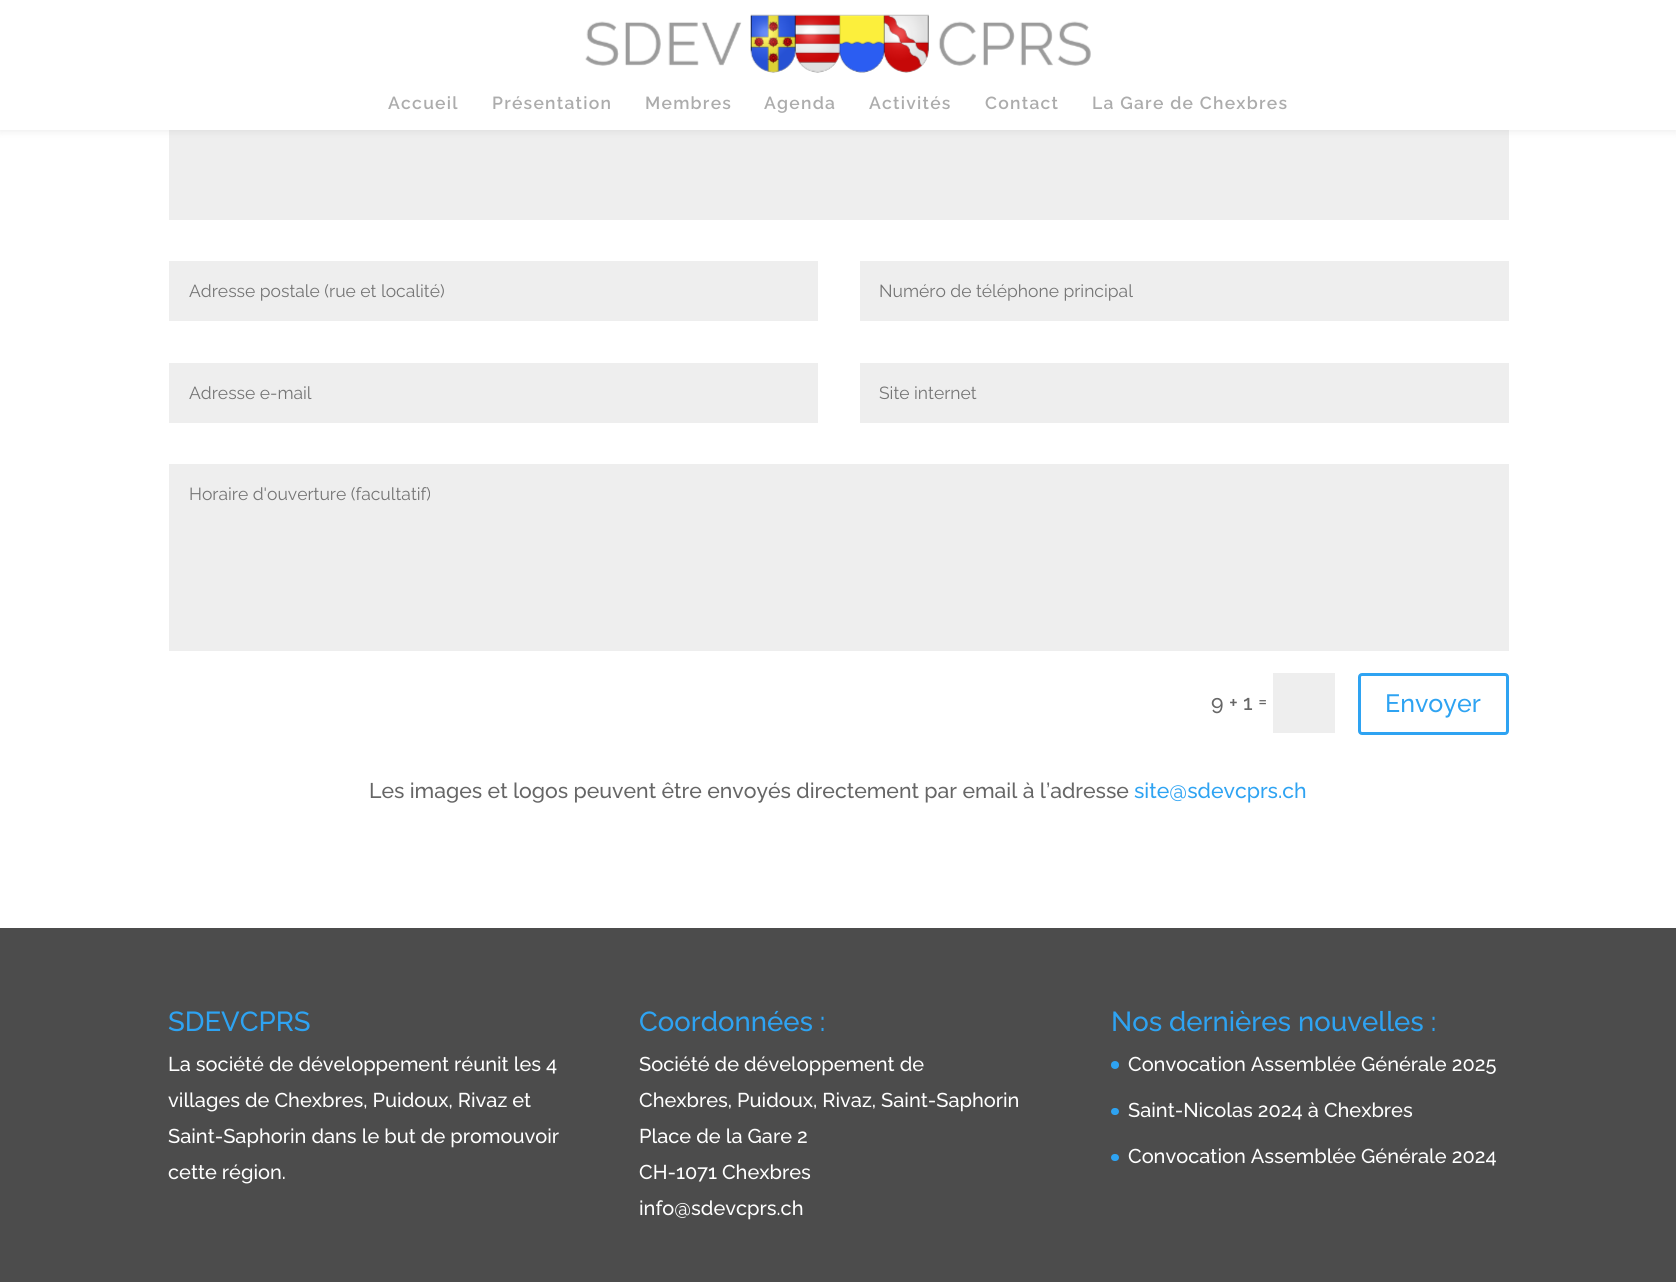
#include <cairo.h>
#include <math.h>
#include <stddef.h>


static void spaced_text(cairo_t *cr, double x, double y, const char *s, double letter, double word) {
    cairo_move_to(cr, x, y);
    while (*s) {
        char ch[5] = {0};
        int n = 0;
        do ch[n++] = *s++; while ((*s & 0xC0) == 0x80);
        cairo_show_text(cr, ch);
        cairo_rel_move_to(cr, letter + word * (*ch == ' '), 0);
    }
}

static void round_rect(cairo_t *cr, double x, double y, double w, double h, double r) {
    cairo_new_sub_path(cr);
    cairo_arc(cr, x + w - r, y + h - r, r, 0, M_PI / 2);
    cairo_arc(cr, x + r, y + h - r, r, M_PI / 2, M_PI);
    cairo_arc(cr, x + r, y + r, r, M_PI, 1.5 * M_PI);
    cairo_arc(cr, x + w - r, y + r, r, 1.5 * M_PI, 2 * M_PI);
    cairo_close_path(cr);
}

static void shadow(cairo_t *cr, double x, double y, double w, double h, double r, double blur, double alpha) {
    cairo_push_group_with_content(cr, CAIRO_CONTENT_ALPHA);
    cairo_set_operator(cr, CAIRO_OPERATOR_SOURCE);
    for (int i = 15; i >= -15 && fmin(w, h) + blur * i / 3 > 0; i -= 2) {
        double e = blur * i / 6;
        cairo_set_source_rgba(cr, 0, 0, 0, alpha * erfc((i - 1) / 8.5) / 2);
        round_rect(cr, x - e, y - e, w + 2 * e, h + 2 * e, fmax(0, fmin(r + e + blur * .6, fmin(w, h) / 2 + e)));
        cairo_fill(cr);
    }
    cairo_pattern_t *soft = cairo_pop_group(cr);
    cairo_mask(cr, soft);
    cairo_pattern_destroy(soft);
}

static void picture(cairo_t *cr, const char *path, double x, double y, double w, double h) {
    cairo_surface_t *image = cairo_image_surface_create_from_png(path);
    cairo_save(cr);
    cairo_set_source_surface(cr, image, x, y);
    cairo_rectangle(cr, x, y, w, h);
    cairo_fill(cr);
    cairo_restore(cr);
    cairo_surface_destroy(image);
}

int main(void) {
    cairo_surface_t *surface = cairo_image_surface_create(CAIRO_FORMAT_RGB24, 1676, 1282);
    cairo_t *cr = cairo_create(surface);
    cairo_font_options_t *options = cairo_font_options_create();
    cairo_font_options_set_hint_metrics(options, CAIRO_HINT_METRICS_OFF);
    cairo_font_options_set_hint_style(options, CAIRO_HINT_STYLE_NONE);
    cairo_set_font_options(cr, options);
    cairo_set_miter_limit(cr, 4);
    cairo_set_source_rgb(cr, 0.298, 0.298, 0.298);
    cairo_paint(cr);
    cairo_set_source_rgb(cr, 1, 1, 1);
    cairo_rectangle(cr, 0, 130, 1676, 798);
    cairo_fill(cr);
    cairo_set_source_rgb(cr, 0.933, 0.933, 0.933);
    cairo_rectangle(cr, 169, 130, 1340, 90);
    cairo_fill(cr);
    cairo_set_source_rgb(cr, 0, 0, 0);
    shadow(cr, 0, 0, 1676, 130, 0, 4.5, 0.1);
    cairo_set_source_rgb(cr, 1, 1, 1);
    cairo_rectangle(cr, 0, 0, 1676, 130);
    cairo_fill(cr);
    picture(cr, "img1.png", 585, 14, 506, 59);
    cairo_select_font_face(cr, "Raleway SemiBold", CAIRO_FONT_SLANT_NORMAL, CAIRO_FONT_WEIGHT_NORMAL);
    cairo_set_font_size(cr, 17.5);
    cairo_set_source_rgb(cr, 0.675, 0.675, 0.675);
    spaced_text(cr, 388, 109, "Accueil", 1.25, 0);
    spaced_text(cr, 492, 109, "Présentation", 1.25, 0);
    spaced_text(cr, 645, 109, "Membres", 1.25, 0);
    spaced_text(cr, 764, 109, "Agenda", 1.25, 0);
    spaced_text(cr, 869, 109, "Activités", 1.25, 0);
    spaced_text(cr, 985, 109, "Contact", 1.25, 0);
    spaced_text(cr, 1092, 109, "La Gare de Chexbres", 1.25, 0);
    cairo_set_source_rgb(cr, 0.933, 0.933, 0.933);
    cairo_rectangle(cr, 169, 261, 649, 60);
    cairo_fill(cr);
    cairo_select_font_face(cr, "Raleway", CAIRO_FONT_SLANT_NORMAL, CAIRO_FONT_WEIGHT_NORMAL);
    cairo_set_source_rgb(cr, 0.459, 0.459, 0.459);
    cairo_move_to(cr, 189, 297);
    cairo_show_text(cr, "Adresse postale (rue et localité)");
    cairo_set_source_rgb(cr, 0.933, 0.933, 0.933);
    cairo_rectangle(cr, 860, 261, 649, 60);
    cairo_fill(cr);
    cairo_set_source_rgb(cr, 0.459, 0.459, 0.459);
    cairo_move_to(cr, 879, 297);
    cairo_show_text(cr, "Numéro de téléphone principal");
    cairo_set_source_rgb(cr, 0.933, 0.933, 0.933);
    cairo_rectangle(cr, 169, 363, 649, 60);
    cairo_fill(cr);
    cairo_set_source_rgb(cr, 0.459, 0.459, 0.459);
    cairo_move_to(cr, 189, 399);
    cairo_show_text(cr, "Adresse e-mail");
    cairo_set_source_rgb(cr, 0.933, 0.933, 0.933);
    cairo_rectangle(cr, 860, 363, 649, 60);
    cairo_fill(cr);
    cairo_set_source_rgb(cr, 0.459, 0.459, 0.459);
    cairo_move_to(cr, 879, 399);
    cairo_show_text(cr, "Site internet");
    cairo_set_source_rgb(cr, 0.933, 0.933, 0.933);
    cairo_rectangle(cr, 169, 464, 1340, 187);
    cairo_fill(cr);
    cairo_set_source_rgb(cr, 0.459, 0.459, 0.459);
    cairo_move_to(cr, 189, 500);
    cairo_show_text(cr, "Horaire d'ouverture (facultatif)");
    cairo_select_font_face(cr, "Raleway Medium", CAIRO_FONT_SLANT_NORMAL, CAIRO_FONT_WEIGHT_NORMAL);
    cairo_set_font_size(cr, 21.25);
    cairo_set_source_rgb(cr, 0.4, 0.4, 0.4);
    cairo_move_to(cr, 1211, 710);
    cairo_show_text(cr, "9 + 1");
    cairo_move_to(cr, 1258, 708);
    cairo_show_text(cr, "=");
    cairo_set_source_rgb(cr, 0.933, 0.933, 0.933);
    cairo_rectangle(cr, 1273, 673, 62, 60);
    cairo_fill(cr);
    round_rect(cr, 1359.5, 674.5, 148, 59, 2.5);
    cairo_set_source_rgb(cr, 0.18, 0.639, 0.949);
    cairo_set_line_width(cr, 3);
    cairo_stroke(cr);
    cairo_set_font_size(cr, 25);
    cairo_move_to(cr, 1385, 712);
    cairo_show_text(cr, "Envoyer");
    cairo_set_font_size(cr, 21.25);
    cairo_set_source_rgb(cr, 0.4, 0.4, 0.4);
    cairo_move_to(cr, 369, 798);
    cairo_show_text(cr, "Les images et logos peuvent être envoyés directement par email à l’adresse");
    cairo_set_source_rgb(cr, 0.18, 0.639, 0.949);
    cairo_move_to(cr, 1134, 798);
    cairo_show_text(cr, "site@sdevcprs.ch");
    cairo_set_font_size(cr, 27.5);
    cairo_move_to(cr, 168, 1031);
    cairo_show_text(cr, "SDEVCPRS");
    cairo_set_font_size(cr, 20);
    cairo_set_source_rgb(cr, 1, 1, 1);
    cairo_move_to(cr, 168, 1071);
    cairo_show_text(cr, "La société de développement réunit les 4");
    cairo_move_to(cr, 168, 1107);
    cairo_show_text(cr, "villages de Chexbres, Puidoux, Rivaz et");
    cairo_move_to(cr, 168, 1143);
    cairo_show_text(cr, "Saint-Saphorin dans le but de promouvoir");
    cairo_move_to(cr, 168, 1179);
    cairo_show_text(cr, "cette région.");
    cairo_set_font_size(cr, 27.5);
    cairo_set_source_rgb(cr, 0.18, 0.639, 0.949);
    cairo_move_to(cr, 639, 1031);
    cairo_show_text(cr, "Coordonnées :");
    cairo_set_font_size(cr, 20);
    cairo_set_source_rgb(cr, 1, 1, 1);
    cairo_move_to(cr, 639, 1071);
    cairo_show_text(cr, "Société de développement de");
    cairo_move_to(cr, 639, 1107);
    cairo_show_text(cr, "Chexbres, Puidoux, Rivaz, Saint-Saphorin");
    cairo_move_to(cr, 639, 1143);
    cairo_show_text(cr, "Place de la Gare 2");
    cairo_move_to(cr, 639, 1179);
    cairo_show_text(cr, "CH-1071 Chexbres");
    cairo_move_to(cr, 639, 1215);
    cairo_show_text(cr, "info@sdevcprs.ch");
    cairo_set_font_size(cr, 27.5);
    cairo_set_source_rgb(cr, 0.18, 0.639, 0.949);
    cairo_move_to(cr, 1111, 1031);
    cairo_show_text(cr, "Nos dernières nouvelles :");
    cairo_new_path(cr);
    cairo_arc(cr, 1115, 1065, 4, 0, 2 * M_PI);
    cairo_fill(cr);
    cairo_set_font_size(cr, 20);
    cairo_set_source_rgb(cr, 1, 1, 1);
    cairo_move_to(cr, 1128, 1071);
    cairo_show_text(cr, "Convocation Assemblée Générale 2025");
    cairo_set_source_rgb(cr, 0.18, 0.639, 0.949);
    round_rect(cr, 1111, 1108, 8, 7, 3.5);
    cairo_fill(cr);
    cairo_set_source_rgb(cr, 1, 1, 1);
    cairo_move_to(cr, 1128, 1117);
    cairo_show_text(cr, "Saint-Nicolas 2024 à Chexbres");
    cairo_set_source_rgb(cr, 0.18, 0.639, 0.949);
    round_rect(cr, 1111, 1154, 8, 7, 3.5);
    cairo_fill(cr);
    cairo_set_source_rgb(cr, 1, 1, 1);
    cairo_move_to(cr, 1128, 1163);
    cairo_show_text(cr, "Convocation Assemblée Générale 2024");
    cairo_surface_write_to_png(surface, "page.png");
    cairo_font_options_destroy(options);
    cairo_destroy(cr);
    cairo_surface_destroy(surface);
    return 0;
}
